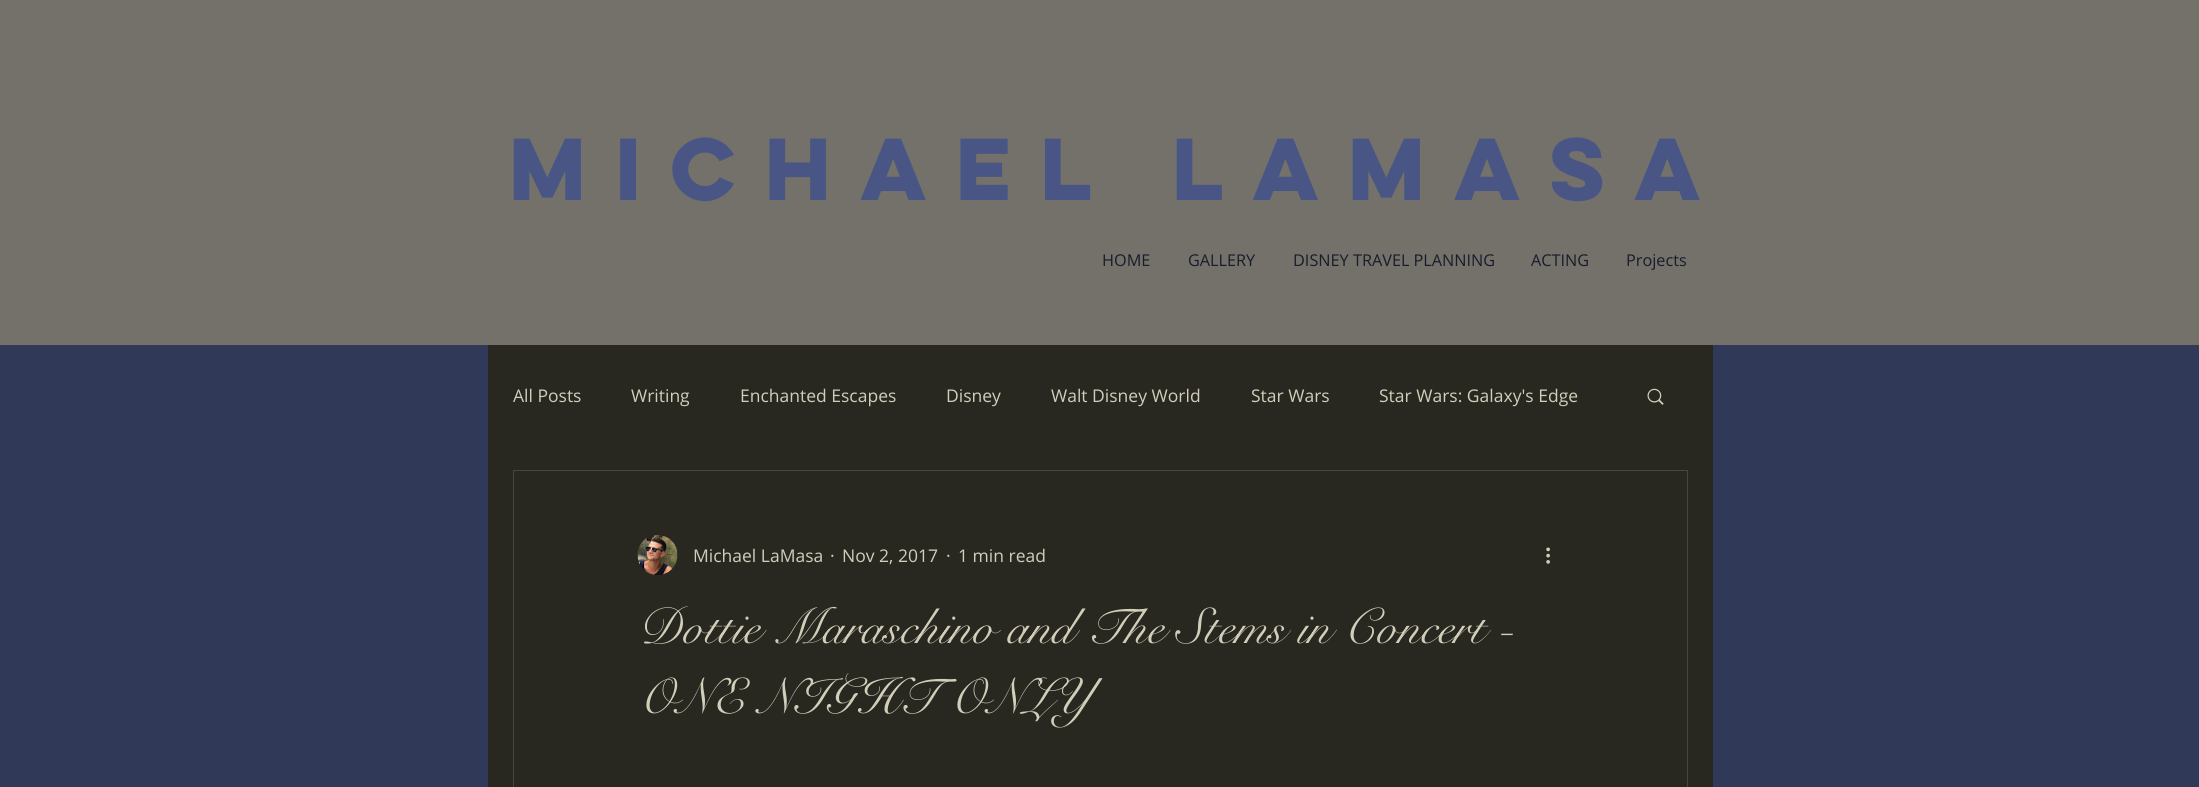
#include <cairo.h>
#include <math.h>
#include <stddef.h>


static void spaced_text(cairo_t *cr, double x, double y, const char *s, double letter, double word) {
    cairo_move_to(cr, x, y);
    while (*s) {
        char ch[5] = {0};
        int n = 0;
        do ch[n++] = *s++; while ((*s & 0xC0) == 0x80);
        cairo_show_text(cr, ch);
        cairo_rel_move_to(cr, letter + word * (*ch == ' '), 0);
    }
}

static void picture(cairo_t *cr, const char *path, double x, double y, double w, double h) {
    cairo_surface_t *image = cairo_image_surface_create_from_png(path);
    cairo_save(cr);
    cairo_set_source_surface(cr, image, x, y);
    cairo_rectangle(cr, x, y, w, h);
    cairo_fill(cr);
    cairo_restore(cr);
    cairo_surface_destroy(image);
}

int main(void) {
    cairo_surface_t *surface = cairo_image_surface_create(CAIRO_FORMAT_RGB24, 2199, 787);
    cairo_t *cr = cairo_create(surface);
    cairo_font_options_t *options = cairo_font_options_create();
    cairo_font_options_set_hint_metrics(options, CAIRO_HINT_METRICS_OFF);
    cairo_font_options_set_hint_style(options, CAIRO_HINT_STYLE_NONE);
    cairo_set_font_options(cr, options);
    cairo_set_miter_limit(cr, 4);
    cairo_set_source_rgb(cr, 0.192, 0.224, 0.345);
    cairo_paint(cr);
    cairo_set_source_rgb(cr, 0.455, 0.443, 0.416);
    cairo_rectangle(cr, 0, 0, 2199, 345);
    cairo_fill(cr);
    cairo_select_font_face(cr, "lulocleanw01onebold", CAIRO_FONT_SLANT_NORMAL, CAIRO_FONT_WEIGHT_BOLD);
    cairo_set_font_size(cr, 78.75);
    cairo_set_source_rgb(cr, 0.286, 0.337, 0.522);
    spaced_text(cr, 509, 200, "MichaeL", 11.75, 0);
    spaced_text(cr, 1172, 200, "LaMasa", 11.75, 0);
    cairo_select_font_face(cr, "Open Sans", CAIRO_FONT_SLANT_NORMAL, CAIRO_FONT_WEIGHT_NORMAL);
    cairo_set_font_size(cr, 16.25);
    cairo_set_source_rgb(cr, 0.094, 0.114, 0.173);
    cairo_move_to(cr, 1102, 266);
    cairo_show_text(cr, "HOME");
    cairo_move_to(cr, 1188, 266);
    cairo_show_text(cr, "GALLERY");
    cairo_move_to(cr, 1293, 266);
    cairo_show_text(cr, "DISNEY TRAVEL PLANNING");
    cairo_move_to(cr, 1531, 266);
    cairo_show_text(cr, "ACTING");
    cairo_move_to(cr, 1626, 266);
    cairo_show_text(cr, "Projects");
    cairo_set_source_rgb(cr, 0.161, 0.157, 0.125);
    cairo_rectangle(cr, 488, 345, 1225, 442);
    cairo_fill(cr);
    cairo_set_font_size(cr, 17.5);
    cairo_set_source_rgb(cr, 0.82, 0.808, 0.729);
    cairo_move_to(cr, 513, 402);
    cairo_show_text(cr, "All Posts");
    cairo_move_to(cr, 631, 402);
    cairo_show_text(cr, "Writing");
    cairo_move_to(cr, 740, 402);
    cairo_show_text(cr, "Enchanted Escapes");
    cairo_move_to(cr, 946, 402);
    cairo_show_text(cr, "Disney");
    cairo_move_to(cr, 1051, 402);
    cairo_show_text(cr, "Walt Disney World");
    cairo_move_to(cr, 1251, 402);
    cairo_show_text(cr, "Star Wars");
    cairo_move_to(cr, 1379, 402);
    cairo_show_text(cr, "Star Wars: Galaxy's Edge");
    picture(cr, "img1.png", 1647, 388, 17, 17);
    cairo_rectangle(cr, 513.5, 470.5, 1174, 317);
    cairo_set_source_rgb(cr, 0.282, 0.275, 0.22);
    cairo_set_line_width(cr, 1);
    cairo_stroke(cr);
    picture(cr, "img2.png", 637, 535, 41, 40);
    cairo_set_source_rgb(cr, 0.82, 0.808, 0.729);
    cairo_move_to(cr, 693, 562);
    cairo_show_text(cr, "Michael LaMasa");
    cairo_move_to(cr, 830, 562);
    cairo_show_text(cr, "·");
    cairo_move_to(cr, 842, 562);
    cairo_show_text(cr, "Nov 2, 2017");
    cairo_move_to(cr, 946, 562);
    cairo_show_text(cr, "·");
    cairo_move_to(cr, 958, 562);
    cairo_show_text(cr, "1 min read");
    picture(cr, "img3.png", 1546, 547, 4, 17);
    cairo_select_font_face(cr, "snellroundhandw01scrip", CAIRO_FONT_SLANT_NORMAL, CAIRO_FONT_WEIGHT_NORMAL);
    cairo_set_font_size(cr, 50);
    cairo_move_to(cr, 638, 643);
    cairo_show_text(cr, "Dottie Maraschino and The Stems in Concert -");
    cairo_move_to(cr, 638, 713);
    cairo_show_text(cr, "ONE NIGHT ONLY");
    cairo_surface_write_to_png(surface, "page.png");
    cairo_font_options_destroy(options);
    cairo_destroy(cr);
    cairo_surface_destroy(surface);
    return 0;
}
